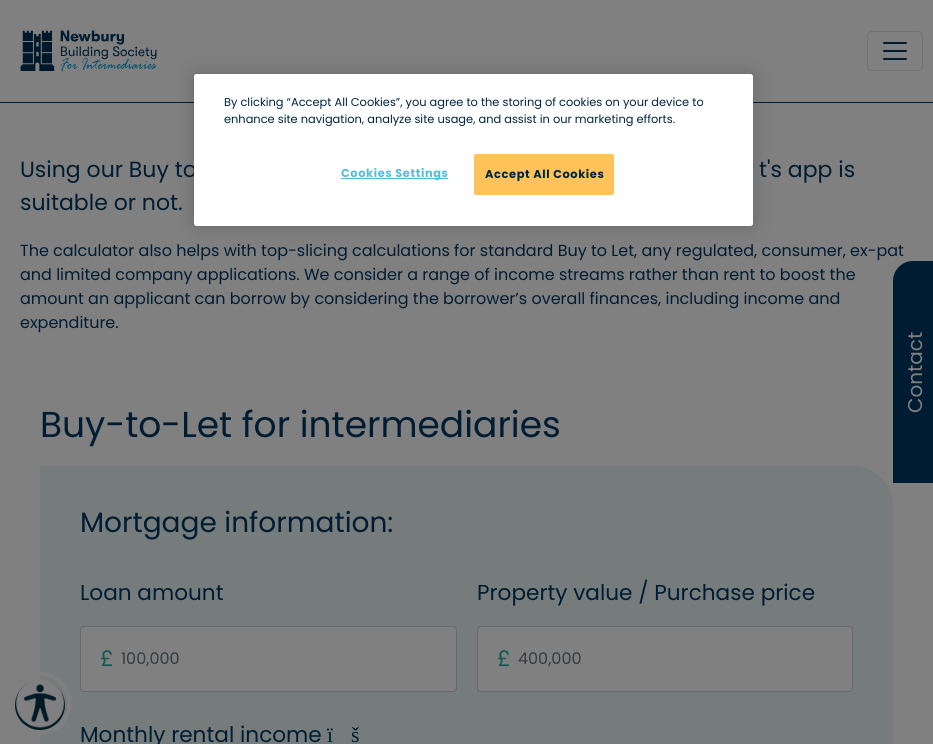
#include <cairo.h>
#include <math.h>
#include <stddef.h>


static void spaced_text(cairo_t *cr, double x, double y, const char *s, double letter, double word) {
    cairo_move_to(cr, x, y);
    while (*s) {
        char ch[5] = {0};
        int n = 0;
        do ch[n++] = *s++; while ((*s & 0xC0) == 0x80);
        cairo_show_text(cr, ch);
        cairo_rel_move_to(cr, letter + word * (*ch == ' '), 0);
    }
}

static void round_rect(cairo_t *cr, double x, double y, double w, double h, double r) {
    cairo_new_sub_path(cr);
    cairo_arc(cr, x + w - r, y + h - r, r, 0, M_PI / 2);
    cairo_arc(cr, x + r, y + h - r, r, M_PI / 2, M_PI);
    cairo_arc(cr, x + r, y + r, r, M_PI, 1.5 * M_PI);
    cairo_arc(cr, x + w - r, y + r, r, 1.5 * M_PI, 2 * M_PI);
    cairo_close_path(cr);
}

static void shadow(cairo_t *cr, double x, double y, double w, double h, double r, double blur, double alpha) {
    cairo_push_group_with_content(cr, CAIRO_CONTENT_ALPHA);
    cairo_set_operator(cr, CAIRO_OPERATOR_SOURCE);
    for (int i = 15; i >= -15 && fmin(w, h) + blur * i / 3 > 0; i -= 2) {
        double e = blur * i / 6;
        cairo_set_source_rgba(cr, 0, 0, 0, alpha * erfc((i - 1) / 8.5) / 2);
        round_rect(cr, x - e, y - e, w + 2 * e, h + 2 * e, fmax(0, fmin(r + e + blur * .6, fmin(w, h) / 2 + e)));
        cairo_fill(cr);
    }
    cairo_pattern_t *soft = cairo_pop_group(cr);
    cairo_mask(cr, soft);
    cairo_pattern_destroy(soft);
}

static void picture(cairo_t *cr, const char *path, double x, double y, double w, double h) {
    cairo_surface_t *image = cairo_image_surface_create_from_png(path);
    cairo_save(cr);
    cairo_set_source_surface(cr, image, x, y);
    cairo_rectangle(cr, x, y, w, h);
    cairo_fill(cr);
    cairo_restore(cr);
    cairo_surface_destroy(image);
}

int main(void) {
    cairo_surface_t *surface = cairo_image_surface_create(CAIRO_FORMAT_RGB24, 933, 744);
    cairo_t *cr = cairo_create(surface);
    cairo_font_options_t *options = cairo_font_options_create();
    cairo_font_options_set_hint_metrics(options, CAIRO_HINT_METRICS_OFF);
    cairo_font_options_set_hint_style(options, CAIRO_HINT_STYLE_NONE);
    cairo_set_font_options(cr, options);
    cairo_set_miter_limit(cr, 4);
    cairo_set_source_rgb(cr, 0.502, 0.502, 0.502);
    cairo_paint(cr);
    cairo_set_source_rgb(cr, 0, 0.11, 0.2);
    cairo_rectangle(cr, 0, 102, 933, 1);
    cairo_fill(cr);
    picture(cr, "img1.png", 20, 30, 137, 42);
    round_rect(cr, 867.5, 31.5, 55, 39, 4.5);
    cairo_set_source_rgb(cr, 0.451, 0.451, 0.451);
    cairo_set_line_width(cr, 1);
    cairo_stroke(cr);
    picture(cr, "img2.png", 883, 42, 24, 18);
    cairo_set_source_rgb(cr, 0, 0, 0);
    shadow(cr, 194, 74, 559, 152, 2.5, 9, 0.2);
    cairo_select_font_face(cr, "Poppins", CAIRO_FONT_SLANT_NORMAL, CAIRO_FONT_WEIGHT_NORMAL);
    cairo_set_font_size(cr, 22);
    cairo_set_source_rgb(cr, 0, 0.11, 0.2);
    cairo_move_to(cr, 20, 177);
    cairo_show_text(cr, "Using our Buy to");
    cairo_set_source_rgb(cr, 1, 1, 1);
    round_rect(cr, 194, 74, 559, 152, 2.5);
    cairo_fill(cr);
    cairo_set_font_size(cr, 11.4);
    cairo_set_source_rgb(cr, 0, 0.141, 0.263);
    cairo_move_to(cr, 224, 106);
    cairo_show_text(cr, "By clicking “Accept All Cookies”, you agree to the storing of cookies on your device to");
    cairo_move_to(cr, 224, 123);
    cairo_show_text(cr, "enhance site navigation, analyze site usage, and assist in our marketing efforts.");
    cairo_set_source_rgb(cr, 0.329, 0.745, 0.851);
    cairo_rectangle(cr, 341, 178, 107, 1);
    cairo_fill(cr);
    cairo_select_font_face(cr, "Poppins", CAIRO_FONT_SLANT_NORMAL, CAIRO_FONT_WEIGHT_BOLD);
    spaced_text(cr, 341, 177, "Cookies Settings", 0.6, 0);
    cairo_set_source_rgb(cr, 0.992, 0.765, 0.349);
    round_rect(cr, 474.5, 154.5, 139, 40, 1.5);
    cairo_fill_preserve(cr);
    cairo_stroke(cr);
    cairo_set_source_rgb(cr, 0, 0.141, 0.263);
    spaced_text(cr, 485, 178, "Accept All Cookies", 0.6, 0);
    cairo_select_font_face(cr, "Poppins", CAIRO_FONT_SLANT_NORMAL, CAIRO_FONT_WEIGHT_NORMAL);
    cairo_set_font_size(cr, 22);
    cairo_set_source_rgb(cr, 0, 0.11, 0.2);
    cairo_move_to(cr, 759, 177);
    cairo_show_text(cr, "t's app is");
    cairo_move_to(cr, 20, 210);
    cairo_show_text(cr, "suitable or not.");
    cairo_set_font_size(cr, 16);
    cairo_move_to(cr, 20, 256);
    cairo_show_text(cr, "The calculator also helps with top-slicing calculations for standard Buy to Let, any regulated, consumer, ex-pat");
    cairo_move_to(cr, 20, 280);
    cairo_show_text(cr, "and limited company applications. We consider a range of income streams rather than rent to boost the");
    cairo_move_to(cr, 20, 304);
    cairo_show_text(cr, "amount an applicant can borrow by considering the borrower’s overall finances, including income and");
    cairo_move_to(cr, 20, 328);
    cairo_show_text(cr, "expenditure.");
    cairo_set_font_size(cr, 36);
    cairo_move_to(cr, 40, 437);
    cairo_show_text(cr, "Buy-to-Let for intermediaries");
    cairo_set_source_rgb(cr, 0.459, 0.486, 0.482);
    cairo_new_path(cr);
    cairo_move_to(cr, 40, 466);
    cairo_line_to(cr, 853, 466);
    cairo_curve_to(cr, 875, 466, 893, 484, 893, 506);
    cairo_line_to(cr, 893, 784);
    cairo_line_to(cr, 40, 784);
    cairo_close_path(cr);
    cairo_fill(cr);
    cairo_set_font_size(cr, 28);
    cairo_set_source_rgb(cr, 0, 0.11, 0.2);
    cairo_move_to(cr, 80, 532);
    cairo_show_text(cr, "Mortgage information:");
    cairo_set_font_size(cr, 21.6);
    cairo_move_to(cr, 80, 600);
    cairo_show_text(cr, "Loan amount");
    cairo_set_source_rgb(cr, 0.502, 0.502, 0.502);
    round_rect(cr, 80.5, 626.5, 376, 65, 3.5);
    cairo_fill_preserve(cr);
    cairo_set_source_rgb(cr, 0.404, 0.416, 0.427);
    cairo_stroke(cr);
    cairo_set_font_size(cr, 22);
    cairo_set_source_rgb(cr, 0.063, 0.353, 0.333);
    cairo_move_to(cr, 100, 666);
    cairo_show_text(cr, "£");
    cairo_set_font_size(cr, 16);
    cairo_set_source_rgb(cr, 0.212, 0.231, 0.247);
    cairo_move_to(cr, 121, 664);
    cairo_show_text(cr, "100,000");
    cairo_set_font_size(cr, 21.6);
    cairo_set_source_rgb(cr, 0, 0.11, 0.2);
    cairo_move_to(cr, 477, 600);
    cairo_show_text(cr, "Property value / Purchase price");
    cairo_set_source_rgb(cr, 0.502, 0.502, 0.502);
    round_rect(cr, 477.5, 626.5, 375, 65, 3.5);
    cairo_fill_preserve(cr);
    cairo_set_source_rgb(cr, 0.404, 0.416, 0.427);
    cairo_stroke(cr);
    cairo_set_font_size(cr, 22);
    cairo_set_source_rgb(cr, 0.063, 0.353, 0.333);
    cairo_move_to(cr, 497, 666);
    cairo_show_text(cr, "£");
    cairo_set_font_size(cr, 16);
    cairo_set_source_rgb(cr, 0.212, 0.231, 0.247);
    cairo_move_to(cr, 518, 664);
    cairo_show_text(cr, "400,000");
    cairo_set_font_size(cr, 21.6);
    cairo_set_source_rgb(cr, 0, 0.11, 0.2);
    cairo_move_to(cr, 80, 742);
    cairo_show_text(cr, "Monthly rental income");
    cairo_select_font_face(cr, "Liberation Serif", CAIRO_FONT_SLANT_NORMAL, CAIRO_FONT_WEIGHT_NORMAL);
    cairo_move_to(cr, 327, 742);
    cairo_show_text(cr, "ï");
    cairo_move_to(cr, 351, 742);
    cairo_show_text(cr, "š");
    cairo_new_path(cr);
    cairo_move_to(cr, 913, 261);
    cairo_line_to(cr, 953, 261);
    cairo_line_to(cr, 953, 483);
    cairo_line_to(cr, 893, 483);
    cairo_line_to(cr, 893, 281);
    cairo_curve_to(cr, 893, 270, 902, 261, 913, 261);
    cairo_close_path(cr);
    cairo_fill(cr);
    cairo_select_font_face(cr, "Poppins", CAIRO_FONT_SLANT_NORMAL, CAIRO_FONT_WEIGHT_NORMAL);
    cairo_set_font_size(cr, 20);
    cairo_set_source_rgb(cr, 0.502, 0.502, 0.502);
    cairo_save(cr);
    cairo_translate(cr, 922, 413);
    cairo_rotate(cr, -90 * M_PI / 180);
    cairo_move_to(cr, 0, 0);
    cairo_show_text(cr, "Contact");
    cairo_restore(cr);
    cairo_set_source_rgb(cr, 0, 0.102, 0.149);
    cairo_new_path(cr);
    cairo_arc(cr, 40, 705, 25, 0, 2 * M_PI);
    cairo_fill(cr);
    picture(cr, "img3.png", 15, 671, 57, 64);
    cairo_surface_write_to_png(surface, "page.png");
    cairo_font_options_destroy(options);
    cairo_destroy(cr);
    cairo_surface_destroy(surface);
    return 0;
}
